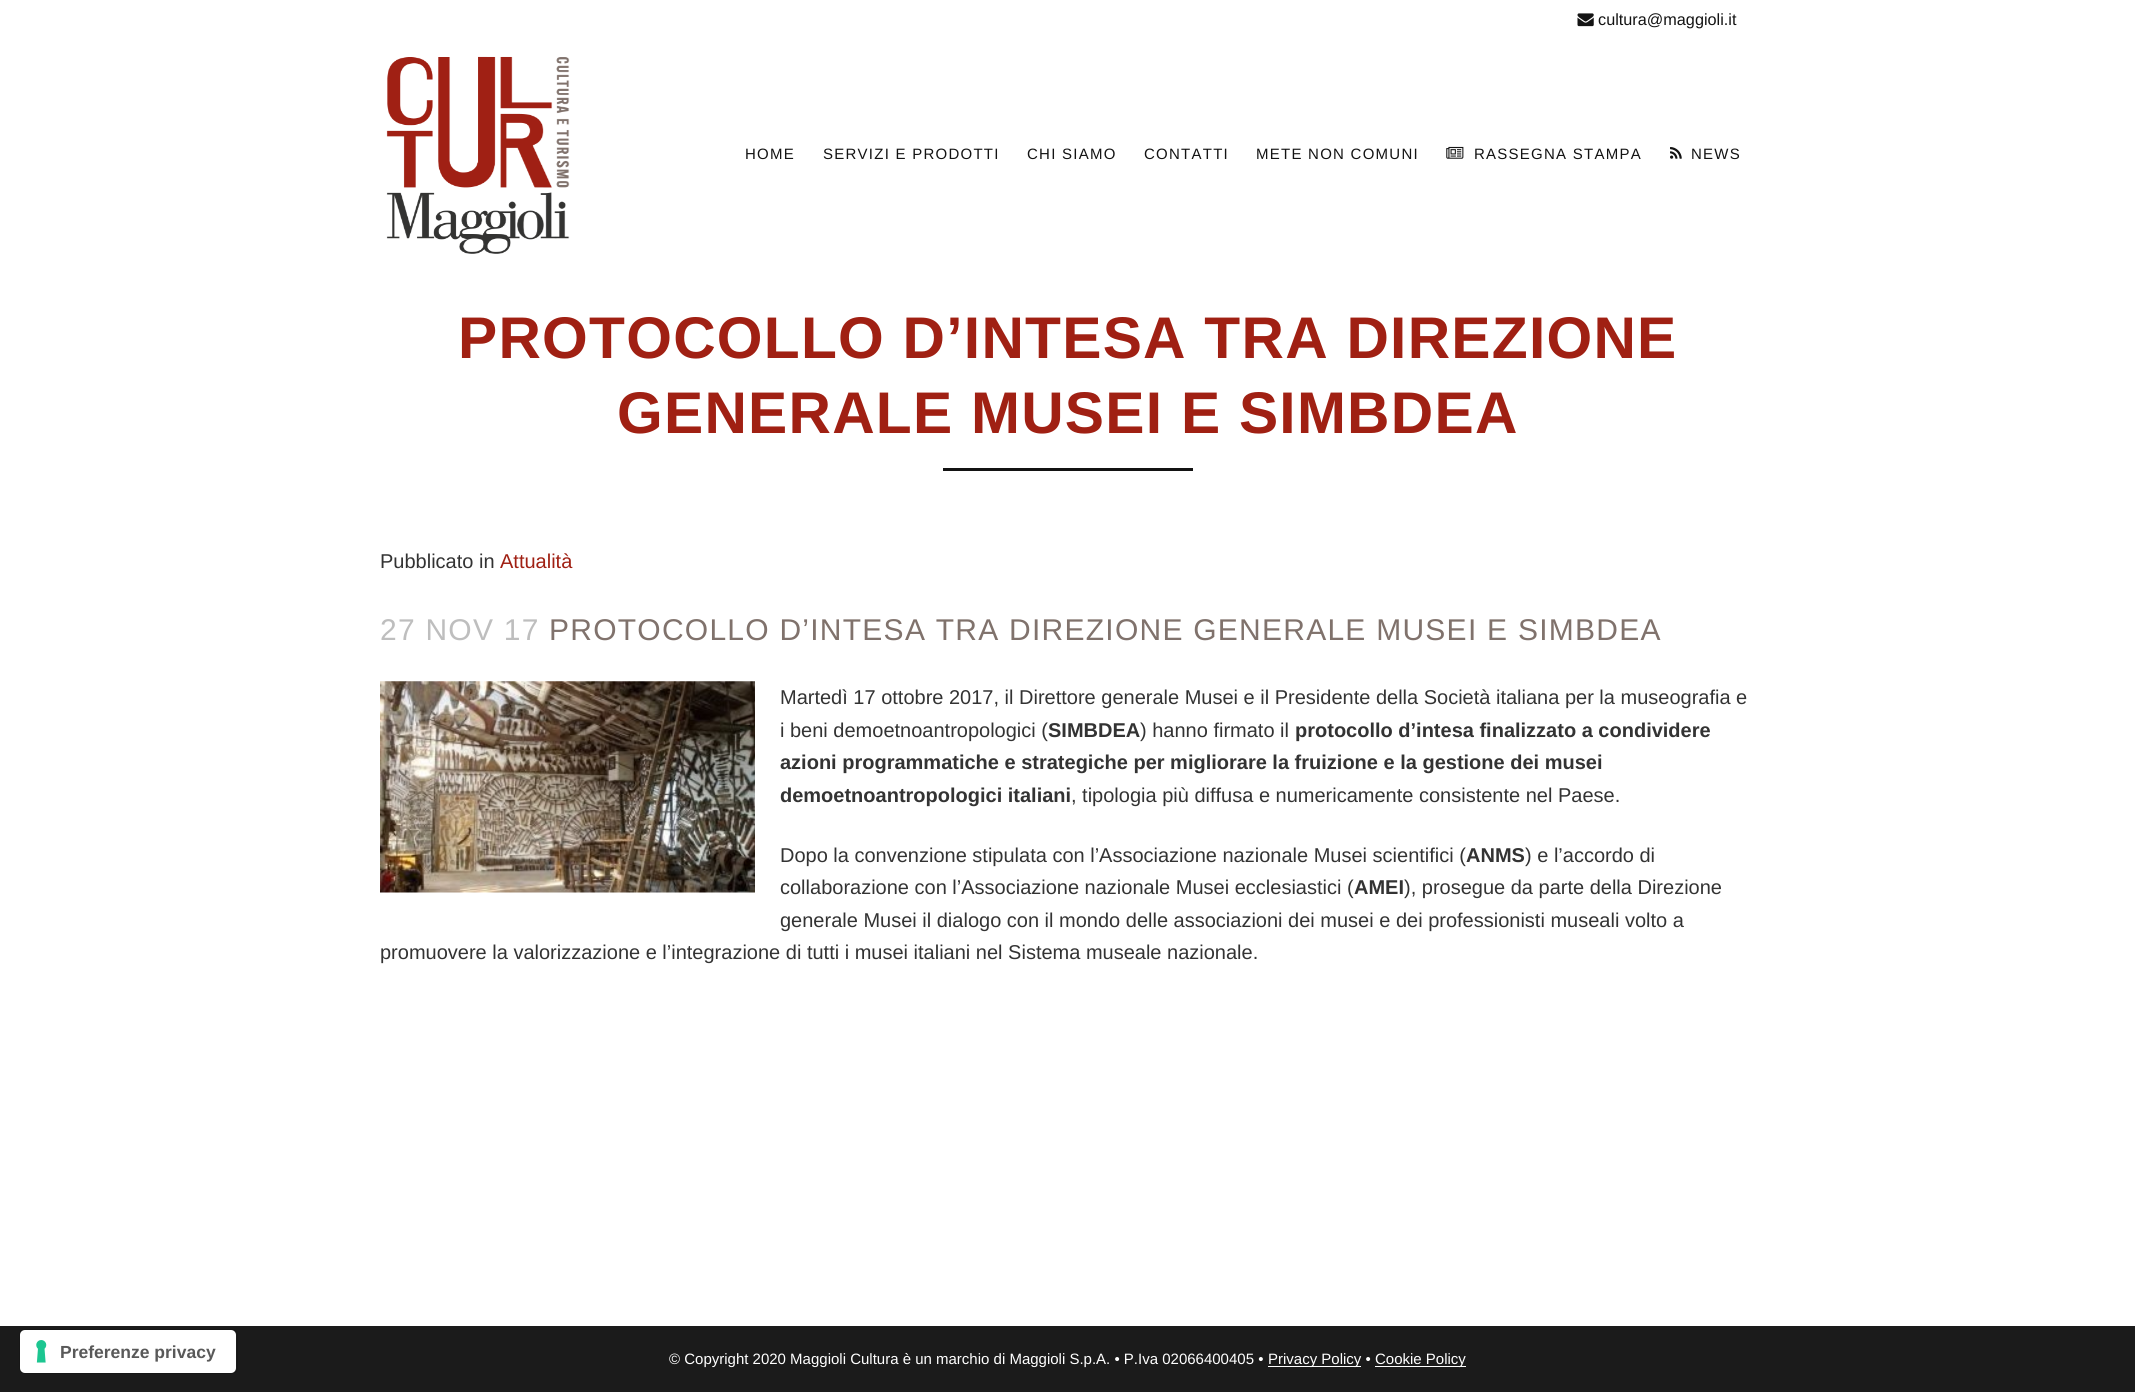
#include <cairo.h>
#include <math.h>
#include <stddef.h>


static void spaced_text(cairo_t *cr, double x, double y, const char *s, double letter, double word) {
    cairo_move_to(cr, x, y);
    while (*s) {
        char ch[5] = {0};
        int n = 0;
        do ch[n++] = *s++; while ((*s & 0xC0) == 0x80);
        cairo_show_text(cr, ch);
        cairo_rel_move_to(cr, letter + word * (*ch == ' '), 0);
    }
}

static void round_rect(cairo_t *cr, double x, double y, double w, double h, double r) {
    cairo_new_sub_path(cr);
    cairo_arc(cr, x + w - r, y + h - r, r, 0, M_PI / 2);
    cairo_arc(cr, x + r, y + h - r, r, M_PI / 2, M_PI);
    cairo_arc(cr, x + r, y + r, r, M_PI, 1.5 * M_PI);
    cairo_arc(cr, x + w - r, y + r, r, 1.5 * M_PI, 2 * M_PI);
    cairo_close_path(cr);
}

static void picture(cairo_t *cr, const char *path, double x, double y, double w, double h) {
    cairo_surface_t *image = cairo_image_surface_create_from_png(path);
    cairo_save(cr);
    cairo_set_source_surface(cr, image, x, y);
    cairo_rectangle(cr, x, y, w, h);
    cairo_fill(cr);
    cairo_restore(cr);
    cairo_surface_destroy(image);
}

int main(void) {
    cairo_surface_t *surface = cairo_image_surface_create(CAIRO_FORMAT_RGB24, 2135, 1392);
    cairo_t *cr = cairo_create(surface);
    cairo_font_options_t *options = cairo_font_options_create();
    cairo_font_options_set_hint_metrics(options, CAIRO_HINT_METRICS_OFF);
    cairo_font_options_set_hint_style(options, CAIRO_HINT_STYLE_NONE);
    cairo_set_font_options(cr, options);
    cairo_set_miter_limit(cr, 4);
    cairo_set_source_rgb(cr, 1, 1, 1);
    cairo_paint(cr);
    cairo_set_source_rgb(cr, 0.106, 0.106, 0.106);
    cairo_rectangle(cr, 0, 1326, 2135, 66);
    cairo_fill(cr);
    round_rect(cr, 19.5, 1329.5, 218, 44, 5.5);
    cairo_set_source_rgb(cr, 0.09, 0.09, 0.09);
    cairo_set_line_width(cr, 1);
    cairo_stroke(cr);
    cairo_set_source_rgb(cr, 1, 1, 1);
    round_rect(cr, 20, 1330, 216, 43, 5);
    cairo_fill(cr);
    picture(cr, "img1.png", 36, 1340, 11, 23);
    cairo_select_font_face(cr, "Liberation Sans", CAIRO_FONT_SLANT_NORMAL, CAIRO_FONT_WEIGHT_BOLD);
    cairo_set_font_size(cr, 17.5);
    cairo_set_source_rgb(cr, 0.349, 0.349, 0.349);
    cairo_move_to(cr, 60, 1358);
    cairo_show_text(cr, "Preferenze privacy");
    picture(cr, "img2.png", 1577, 13, 17, 14);
    cairo_select_font_face(cr, "Liberation Sans", CAIRO_FONT_SLANT_NORMAL, CAIRO_FONT_WEIGHT_NORMAL);
    cairo_set_font_size(cr, 16.25);
    cairo_set_source_rgb(cr, 0.078, 0.078, 0.078);
    cairo_move_to(cr, 1598, 25);
    cairo_show_text(cr, "cultura@maggioli.it");
    picture(cr, "img3.png", 386, 56, 184, 198);
    cairo_set_font_size(cr, 15);
    spaced_text(cr, 745, 159, "HOME", 1.25, 0);
    spaced_text(cr, 823, 159, "SERVIZI E PRODOTTI", 1.25, 0);
    spaced_text(cr, 1027, 159, "CHI SIAMO", 1.25, 0);
    spaced_text(cr, 1144, 159, "CONTATTI", 1.25, 0);
    spaced_text(cr, 1256, 159, "METE NON COMUNI", 1.25, 0);
    picture(cr, "img4.png", 1446, 146, 18, 13);
    spaced_text(cr, 1474, 159, "RASSEGNA STAMPA", 1.25, 0);
    picture(cr, "img5.png", 1670, 147, 12, 12);
    spaced_text(cr, 1691, 159, "NEWS", 1.25, 0);
    cairo_select_font_face(cr, "Liberation Sans", CAIRO_FONT_SLANT_NORMAL, CAIRO_FONT_WEIGHT_BOLD);
    cairo_set_font_size(cr, 58.75);
    cairo_set_source_rgb(cr, 0.627, 0.125, 0.078);
    spaced_text(cr, 458, 358, "PROTOCOLLO D’INTESA TRA DIREZIONE", 1.25, 0);
    spaced_text(cr, 617, 433, "GENERALE MUSEI E SIMBDEA", 1.25, 0);
    cairo_set_source_rgb(cr, 0.078, 0.078, 0.078);
    cairo_rectangle(cr, 943, 468, 250, 3);
    cairo_fill(cr);
    cairo_select_font_face(cr, "Liberation Sans", CAIRO_FONT_SLANT_NORMAL, CAIRO_FONT_WEIGHT_NORMAL);
    cairo_set_font_size(cr, 20);
    cairo_set_source_rgb(cr, 0.2, 0.2, 0.2);
    cairo_move_to(cr, 380, 568);
    cairo_show_text(cr, "Pubblicato in");
    cairo_set_source_rgb(cr, 0.627, 0.125, 0.078);
    cairo_move_to(cr, 500, 568);
    cairo_show_text(cr, "Attualità");
    cairo_set_font_size(cr, 30);
    cairo_set_source_rgb(cr, 0.745, 0.745, 0.745);
    spaced_text(cr, 380, 640, "27 NOV 17", 1.25, 0);
    cairo_set_source_rgb(cr, 0.502, 0.447, 0.424);
    spaced_text(cr, 549, 640, "PROTOCOLLO D’INTESA TRA DIREZIONE GENERALE MUSEI E SIMBDEA", 1.25, 0);
    picture(cr, "img6.png", 380, 681, 375, 212);
    cairo_set_font_size(cr, 20);
    cairo_set_source_rgb(cr, 0.2, 0.2, 0.2);
    cairo_move_to(cr, 780, 704);
    cairo_show_text(cr, "Martedì 17 ottobre 2017, il Direttore generale Musei e il Presidente della Società italiana per la museografia e");
    cairo_move_to(cr, 780, 737);
    cairo_show_text(cr, "i beni demoetnoantropologici (");
    cairo_select_font_face(cr, "Liberation Sans", CAIRO_FONT_SLANT_NORMAL, CAIRO_FONT_WEIGHT_BOLD);
    cairo_move_to(cr, 1048, 737);
    cairo_show_text(cr, "SIMBDEA");
    cairo_select_font_face(cr, "Liberation Sans", CAIRO_FONT_SLANT_NORMAL, CAIRO_FONT_WEIGHT_NORMAL);
    cairo_move_to(cr, 1140, 737);
    cairo_show_text(cr, ") hanno firmato il");
    cairo_select_font_face(cr, "Liberation Sans", CAIRO_FONT_SLANT_NORMAL, CAIRO_FONT_WEIGHT_BOLD);
    cairo_move_to(cr, 1295, 737);
    cairo_show_text(cr, "protocollo d’intesa finalizzato a condividere");
    cairo_move_to(cr, 780, 769);
    cairo_show_text(cr, "azioni programmatiche e strategiche per migliorare la fruizione e la gestione dei musei");
    cairo_move_to(cr, 780, 802);
    cairo_show_text(cr, "demoetnoantropologici italiani");
    cairo_select_font_face(cr, "Liberation Sans", CAIRO_FONT_SLANT_NORMAL, CAIRO_FONT_WEIGHT_NORMAL);
    cairo_move_to(cr, 1071, 802);
    cairo_show_text(cr, ", tipologia più diffusa e numericamente consistente nel Paese.");
    cairo_move_to(cr, 780, 862);
    cairo_show_text(cr, "Dopo la convenzione stipulata con l’Associazione nazionale Musei scientifici (");
    cairo_select_font_face(cr, "Liberation Sans", CAIRO_FONT_SLANT_NORMAL, CAIRO_FONT_WEIGHT_BOLD);
    cairo_move_to(cr, 1466, 862);
    cairo_show_text(cr, "ANMS");
    cairo_select_font_face(cr, "Liberation Sans", CAIRO_FONT_SLANT_NORMAL, CAIRO_FONT_WEIGHT_NORMAL);
    cairo_move_to(cr, 1525, 862);
    cairo_show_text(cr, ") e l’accordo di");
    cairo_move_to(cr, 780, 894);
    cairo_show_text(cr, "collaborazione con l’Associazione nazionale Musei ecclesiastici (");
    cairo_select_font_face(cr, "Liberation Sans", CAIRO_FONT_SLANT_NORMAL, CAIRO_FONT_WEIGHT_BOLD);
    cairo_move_to(cr, 1354, 894);
    cairo_show_text(cr, "AMEI");
    cairo_select_font_face(cr, "Liberation Sans", CAIRO_FONT_SLANT_NORMAL, CAIRO_FONT_WEIGHT_NORMAL);
    cairo_move_to(cr, 1404, 894);
    cairo_show_text(cr, "), prosegue da parte della Direzione");
    cairo_move_to(cr, 780, 927);
    cairo_show_text(cr, "generale Musei il dialogo con il mondo delle associazioni dei musei e dei professionisti museali volto a");
    cairo_move_to(cr, 380, 959);
    cairo_show_text(cr, "promuovere la valorizzazione e l’integrazione di tutti i musei italiani nel Sistema museale nazionale.");
    cairo_set_font_size(cr, 15);
    cairo_set_source_rgb(cr, 1, 1, 1);
    cairo_move_to(cr, 669, 1364);
    cairo_show_text(cr, "© Copyright 2020 Maggioli Cultura è un marchio di Maggioli S.p.A. • P.Iva 02066400405 •");
    cairo_rectangle(cr, 1268, 1366, 93, 1);
    cairo_fill(cr);
    cairo_move_to(cr, 1268, 1364);
    cairo_show_text(cr, "Privacy Policy •");
    cairo_rectangle(cr, 1375, 1366, 91, 1);
    cairo_fill(cr);
    cairo_move_to(cr, 1375, 1364);
    cairo_show_text(cr, "Cookie Policy");
    cairo_surface_write_to_png(surface, "page.png");
    cairo_font_options_destroy(options);
    cairo_destroy(cr);
    cairo_surface_destroy(surface);
    return 0;
}
